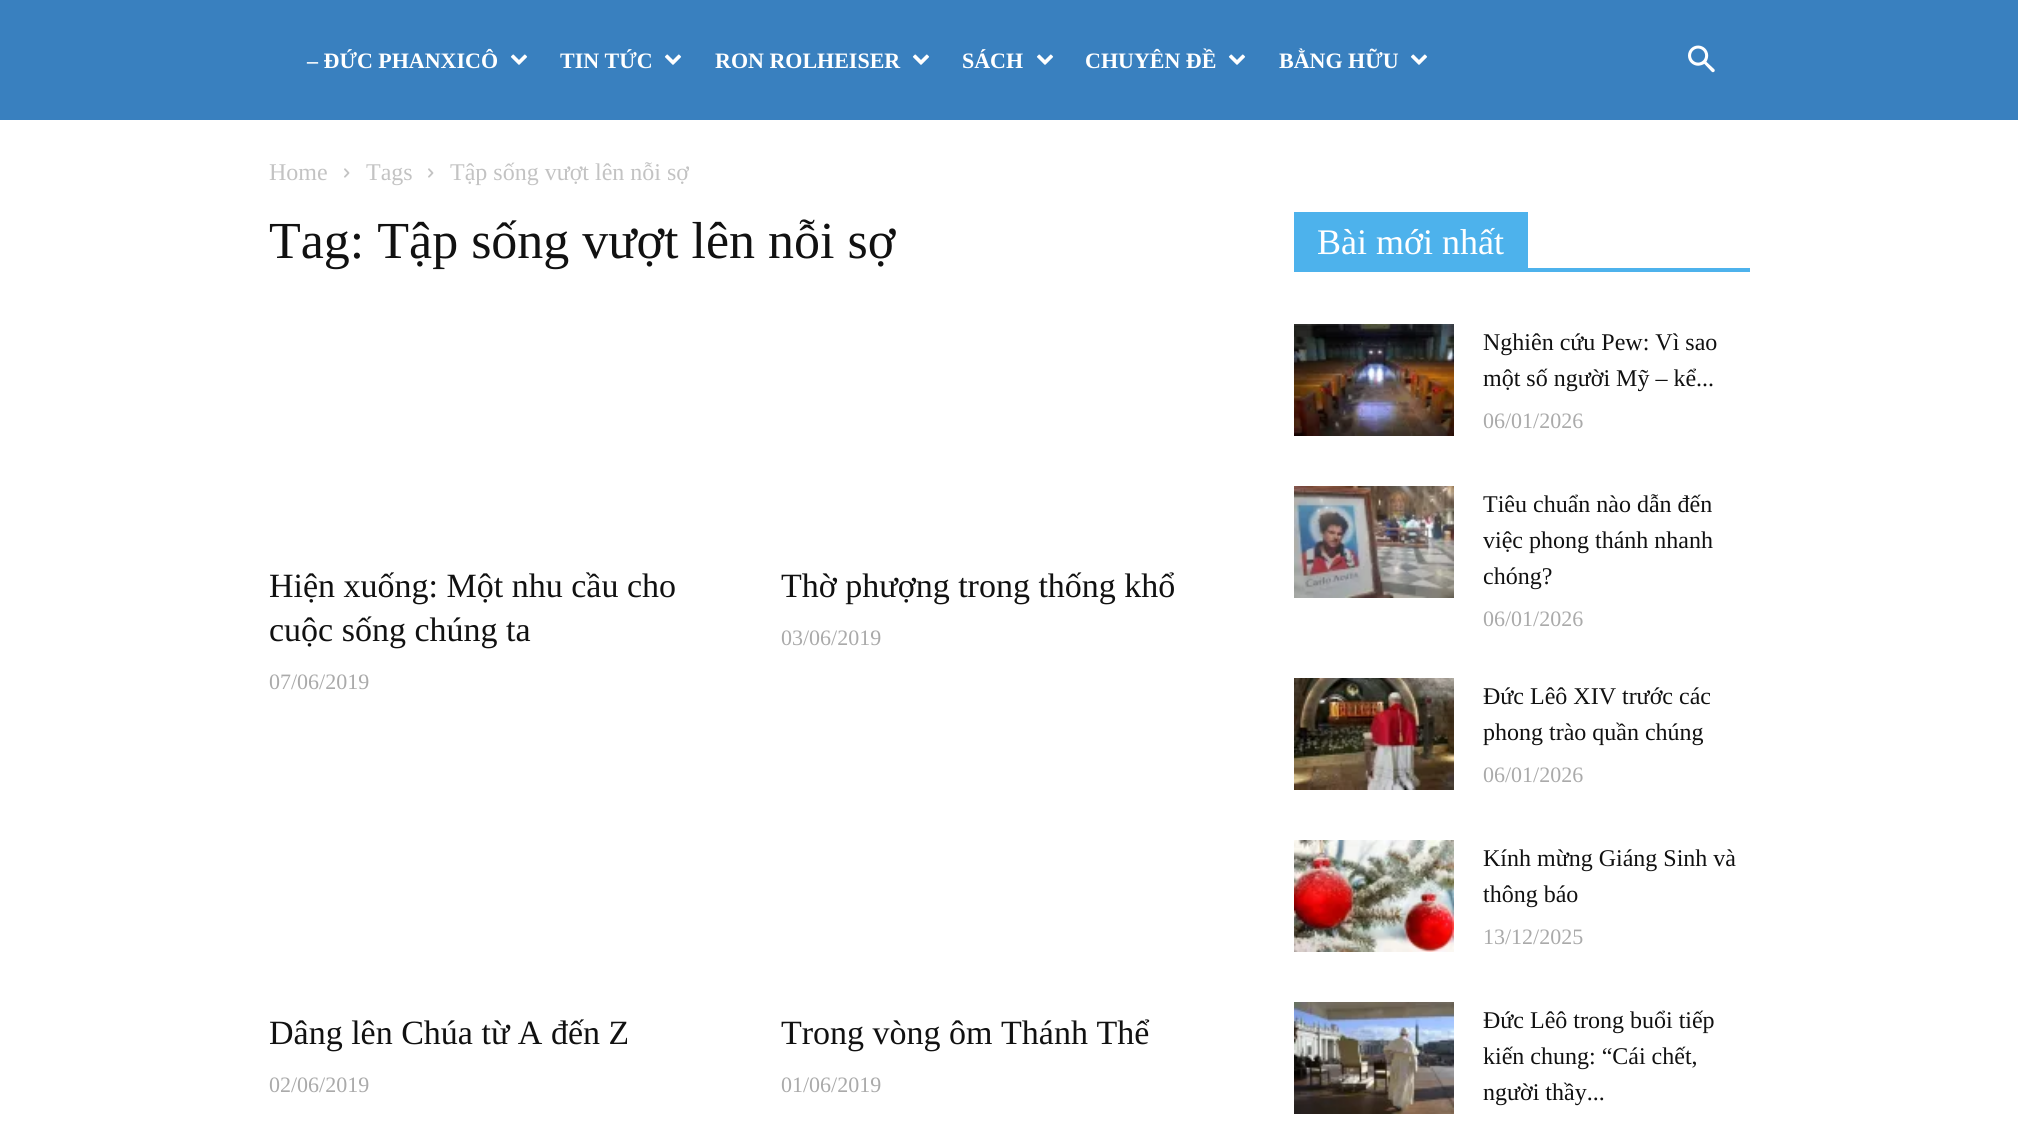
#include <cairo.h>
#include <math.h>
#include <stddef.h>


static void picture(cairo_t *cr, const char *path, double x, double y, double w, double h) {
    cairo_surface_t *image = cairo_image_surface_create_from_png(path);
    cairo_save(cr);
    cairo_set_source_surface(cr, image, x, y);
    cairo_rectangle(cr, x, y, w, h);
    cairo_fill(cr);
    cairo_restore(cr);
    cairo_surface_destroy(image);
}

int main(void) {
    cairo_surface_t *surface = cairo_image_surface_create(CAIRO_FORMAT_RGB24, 2018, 1130);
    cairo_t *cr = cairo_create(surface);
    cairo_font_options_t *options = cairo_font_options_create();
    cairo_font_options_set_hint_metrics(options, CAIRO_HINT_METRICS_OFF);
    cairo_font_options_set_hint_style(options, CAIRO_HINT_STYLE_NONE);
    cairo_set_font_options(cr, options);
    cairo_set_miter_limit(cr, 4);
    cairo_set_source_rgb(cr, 1, 1, 1);
    cairo_paint(cr);
    cairo_set_source_rgb(cr, 0.224, 0.502, 0.749);
    cairo_rectangle(cr, 0, 0, 2018, 120);
    cairo_fill(cr);
    cairo_select_font_face(cr, "Liberation Serif", CAIRO_FONT_SLANT_NORMAL, CAIRO_FONT_WEIGHT_BOLD);
    cairo_set_font_size(cr, 22);
    cairo_set_source_rgb(cr, 1, 1, 1);
    cairo_move_to(cr, 307, 68);
    cairo_show_text(cr, "– ĐỨC PHANXICÔ");
    picture(cr, "img1.png", 510, 54, 18, 11);
    cairo_move_to(cr, 560, 68);
    cairo_show_text(cr, "TIN TỨC");
    picture(cr, "img1.png", 664, 54, 18, 11);
    cairo_move_to(cr, 715, 68);
    cairo_show_text(cr, "RON ROLHEISER");
    picture(cr, "img1.png", 912, 54, 18, 11);
    cairo_move_to(cr, 962, 68);
    cairo_show_text(cr, "SÁCH");
    picture(cr, "img1.png", 1036, 54, 18, 11);
    cairo_move_to(cr, 1085, 68);
    cairo_show_text(cr, "CHUYÊN ĐỀ");
    picture(cr, "img1.png", 1228, 54, 18, 11);
    cairo_move_to(cr, 1279, 68);
    cairo_show_text(cr, "BẰNG HỮU");
    picture(cr, "img1.png", 1410, 54, 18, 11);
    picture(cr, "img2.png", 1688, 45, 27, 28);
    cairo_select_font_face(cr, "Liberation Serif", CAIRO_FONT_SLANT_NORMAL, CAIRO_FONT_WEIGHT_NORMAL);
    cairo_set_font_size(cr, 24);
    cairo_set_source_rgb(cr, 0.765, 0.765, 0.765);
    cairo_move_to(cr, 269, 180);
    cairo_show_text(cr, "Home");
    picture(cr, "img3.png", 344, 168, 6, 10);
    cairo_move_to(cr, 366, 180);
    cairo_show_text(cr, "Tags");
    picture(cr, "img3.png", 428, 168, 6, 10);
    cairo_move_to(cr, 450, 180);
    cairo_show_text(cr, "Tập sống vượt lên nỗi sợ");
    cairo_set_font_size(cr, 52);
    cairo_set_source_rgb(cr, 0.067, 0.067, 0.067);
    cairo_move_to(cr, 269, 258);
    cairo_show_text(cr, "Tag: Tập sống vượt lên nỗi sợ");
    cairo_set_font_size(cr, 34);
    cairo_move_to(cr, 269, 597);
    cairo_show_text(cr, "Hiện xuống: Một nhu cầu cho");
    cairo_move_to(cr, 269, 641);
    cairo_show_text(cr, "cuộc sống chúng ta");
    cairo_set_font_size(cr, 22);
    cairo_set_source_rgb(cr, 0.667, 0.667, 0.667);
    cairo_move_to(cr, 269, 689);
    cairo_show_text(cr, "07/06/2019");
    cairo_set_font_size(cr, 34);
    cairo_set_source_rgb(cr, 0.067, 0.067, 0.067);
    cairo_move_to(cr, 781, 597);
    cairo_show_text(cr, "Thờ phượng trong thống khổ");
    cairo_set_font_size(cr, 22);
    cairo_set_source_rgb(cr, 0.667, 0.667, 0.667);
    cairo_move_to(cr, 781, 645);
    cairo_show_text(cr, "03/06/2019");
    cairo_set_font_size(cr, 34);
    cairo_set_source_rgb(cr, 0.067, 0.067, 0.067);
    cairo_move_to(cr, 269, 1044);
    cairo_show_text(cr, "Dâng lên Chúa từ A đến Z");
    cairo_set_font_size(cr, 22);
    cairo_set_source_rgb(cr, 0.667, 0.667, 0.667);
    cairo_move_to(cr, 269, 1092);
    cairo_show_text(cr, "02/06/2019");
    cairo_set_font_size(cr, 34);
    cairo_set_source_rgb(cr, 0.067, 0.067, 0.067);
    cairo_move_to(cr, 781, 1044);
    cairo_show_text(cr, "Trong vòng ôm Thánh Thể");
    cairo_set_font_size(cr, 22);
    cairo_set_source_rgb(cr, 0.667, 0.667, 0.667);
    cairo_move_to(cr, 781, 1092);
    cairo_show_text(cr, "01/06/2019");
    cairo_set_source_rgb(cr, 0.302, 0.698, 0.925);
    cairo_rectangle(cr, 1294, 268, 456, 4);
    cairo_fill(cr);
    cairo_rectangle(cr, 1294, 212, 234, 56);
    cairo_fill(cr);
    cairo_set_font_size(cr, 36);
    cairo_set_source_rgb(cr, 1, 1, 1);
    cairo_move_to(cr, 1317, 254);
    cairo_show_text(cr, "Bài mới nhất");
    picture(cr, "img4.png", 1294, 324, 160, 112);
    cairo_set_font_size(cr, 24);
    cairo_set_source_rgb(cr, 0.067, 0.067, 0.067);
    cairo_move_to(cr, 1483, 350);
    cairo_show_text(cr, "Nghiên cứu Pew: Vì sao");
    cairo_move_to(cr, 1483, 386);
    cairo_show_text(cr, "một số người Mỹ – kể...");
    cairo_set_font_size(cr, 22);
    cairo_set_source_rgb(cr, 0.667, 0.667, 0.667);
    cairo_move_to(cr, 1483, 428);
    cairo_show_text(cr, "06/01/2026");
    picture(cr, "img5.png", 1294, 486, 160, 112);
    cairo_set_font_size(cr, 24);
    cairo_set_source_rgb(cr, 0.067, 0.067, 0.067);
    cairo_move_to(cr, 1483, 512);
    cairo_show_text(cr, "Tiêu chuẩn nào dẫn đến");
    cairo_move_to(cr, 1483, 548);
    cairo_show_text(cr, "việc phong thánh nhanh");
    cairo_move_to(cr, 1483, 584);
    cairo_show_text(cr, "chóng?");
    cairo_set_font_size(cr, 22);
    cairo_set_source_rgb(cr, 0.667, 0.667, 0.667);
    cairo_move_to(cr, 1483, 626);
    cairo_show_text(cr, "06/01/2026");
    picture(cr, "img6.png", 1294, 678, 160, 112);
    cairo_set_font_size(cr, 24);
    cairo_set_source_rgb(cr, 0.067, 0.067, 0.067);
    cairo_move_to(cr, 1483, 704);
    cairo_show_text(cr, "Đức Lêô XIV trước các");
    cairo_move_to(cr, 1483, 740);
    cairo_show_text(cr, "phong trào quần chúng");
    cairo_set_font_size(cr, 22);
    cairo_set_source_rgb(cr, 0.667, 0.667, 0.667);
    cairo_move_to(cr, 1483, 782);
    cairo_show_text(cr, "06/01/2026");
    picture(cr, "img7.png", 1294, 840, 160, 112);
    cairo_set_font_size(cr, 24);
    cairo_set_source_rgb(cr, 0.067, 0.067, 0.067);
    cairo_move_to(cr, 1483, 866);
    cairo_show_text(cr, "Kính mừng Giáng Sinh và");
    cairo_move_to(cr, 1483, 902);
    cairo_show_text(cr, "thông báo");
    cairo_set_font_size(cr, 22);
    cairo_set_source_rgb(cr, 0.667, 0.667, 0.667);
    cairo_move_to(cr, 1483, 944);
    cairo_show_text(cr, "13/12/2025");
    picture(cr, "img8.png", 1294, 1002, 160, 112);
    cairo_set_font_size(cr, 24);
    cairo_set_source_rgb(cr, 0.067, 0.067, 0.067);
    cairo_move_to(cr, 1483, 1028);
    cairo_show_text(cr, "Đức Lêô trong buổi tiếp");
    cairo_move_to(cr, 1483, 1064);
    cairo_show_text(cr, "kiến chung: “Cái chết,");
    cairo_move_to(cr, 1483, 1100);
    cairo_show_text(cr, "người thầy...");
    cairo_surface_write_to_png(surface, "page.png");
    cairo_font_options_destroy(options);
    cairo_destroy(cr);
    cairo_surface_destroy(surface);
    return 0;
}
